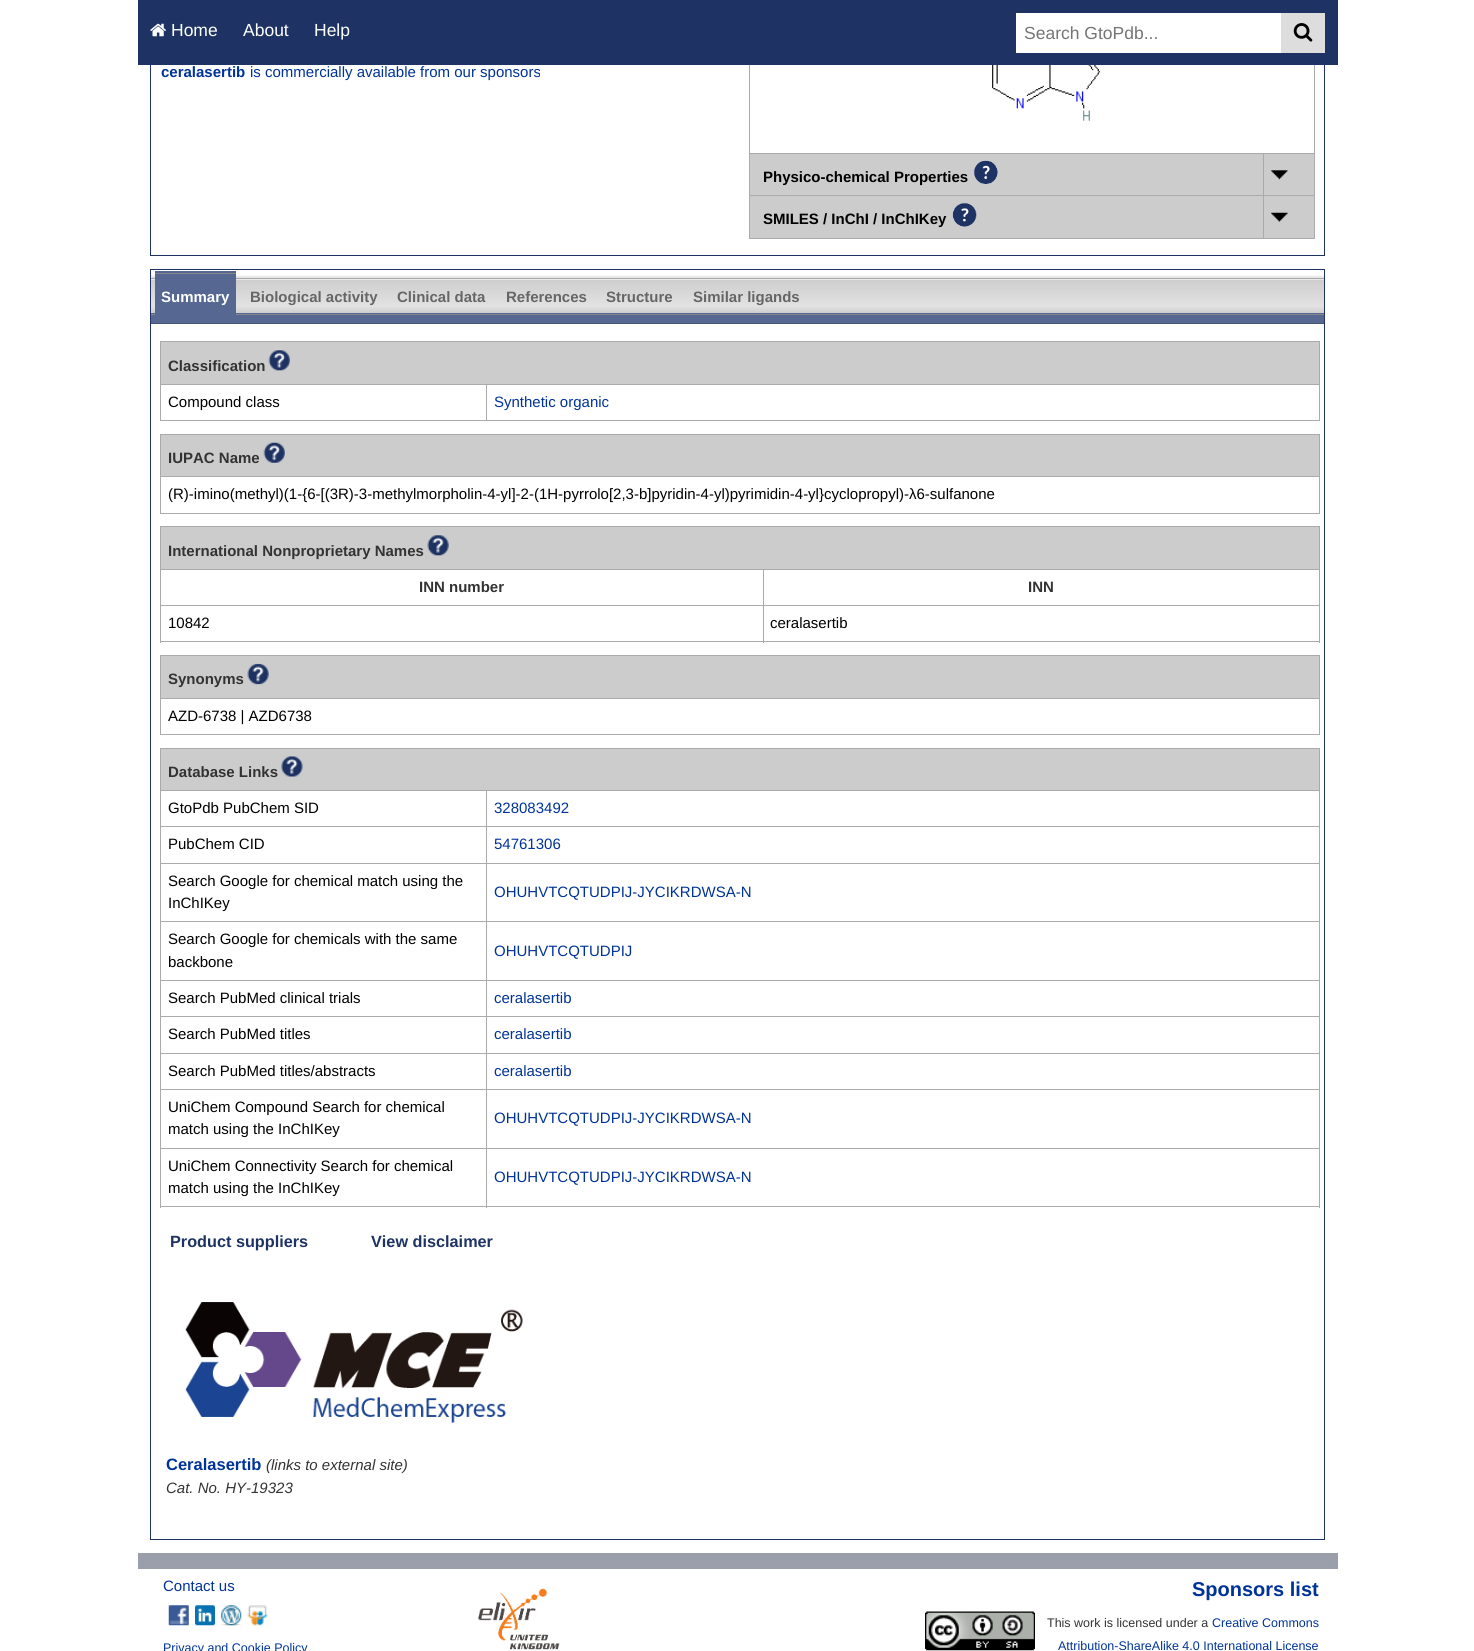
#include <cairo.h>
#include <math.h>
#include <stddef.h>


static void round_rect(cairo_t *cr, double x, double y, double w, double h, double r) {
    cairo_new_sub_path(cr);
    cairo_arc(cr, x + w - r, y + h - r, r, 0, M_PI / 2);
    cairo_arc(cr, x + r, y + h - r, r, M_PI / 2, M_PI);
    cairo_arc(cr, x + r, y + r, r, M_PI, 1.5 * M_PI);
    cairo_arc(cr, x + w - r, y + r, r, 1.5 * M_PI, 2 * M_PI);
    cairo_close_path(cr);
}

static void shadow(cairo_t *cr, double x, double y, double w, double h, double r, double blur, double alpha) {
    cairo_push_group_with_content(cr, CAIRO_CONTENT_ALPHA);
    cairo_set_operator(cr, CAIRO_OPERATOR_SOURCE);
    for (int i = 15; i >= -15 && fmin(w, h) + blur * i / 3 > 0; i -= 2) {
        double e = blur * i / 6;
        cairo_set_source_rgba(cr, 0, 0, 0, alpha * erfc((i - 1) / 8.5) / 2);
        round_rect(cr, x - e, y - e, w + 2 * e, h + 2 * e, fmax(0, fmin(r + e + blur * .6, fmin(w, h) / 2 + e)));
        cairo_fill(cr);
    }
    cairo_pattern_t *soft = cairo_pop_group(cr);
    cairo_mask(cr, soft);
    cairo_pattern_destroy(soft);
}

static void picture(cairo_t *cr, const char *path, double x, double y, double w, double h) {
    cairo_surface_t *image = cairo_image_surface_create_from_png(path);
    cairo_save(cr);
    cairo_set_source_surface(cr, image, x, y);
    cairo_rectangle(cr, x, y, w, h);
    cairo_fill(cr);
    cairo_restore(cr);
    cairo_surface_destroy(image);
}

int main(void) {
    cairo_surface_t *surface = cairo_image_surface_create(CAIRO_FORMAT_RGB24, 1474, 1651);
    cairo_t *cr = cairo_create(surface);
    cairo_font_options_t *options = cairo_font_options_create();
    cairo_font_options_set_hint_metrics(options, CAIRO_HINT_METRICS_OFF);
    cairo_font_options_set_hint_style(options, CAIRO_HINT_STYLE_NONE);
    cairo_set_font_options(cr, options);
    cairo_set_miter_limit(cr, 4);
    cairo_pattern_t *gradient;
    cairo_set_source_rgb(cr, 1, 1, 1);
    cairo_paint(cr);
    cairo_rectangle(cr, 150.5, -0.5, 1174, 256);
    cairo_set_source_rgb(cr, 0.118, 0.2, 0.388);
    cairo_set_line_width(cr, 1);
    cairo_stroke(cr);
    cairo_rectangle(cr, 138, 0, 1200, 65);
    cairo_fill(cr);
    picture(cr, "img1.png", 150, 23, 16, 14);
    cairo_select_font_face(cr, "Liberation Sans", CAIRO_FONT_SLANT_NORMAL, CAIRO_FONT_WEIGHT_NORMAL);
    cairo_set_font_size(cr, 17.5);
    cairo_set_source_rgb(cr, 1, 1, 1);
    cairo_move_to(cr, 171, 36);
    cairo_show_text(cr, "Home");
    cairo_move_to(cr, 243, 36);
    cairo_show_text(cr, "About");
    cairo_move_to(cr, 314, 36);
    cairo_show_text(cr, "Help");
    cairo_rectangle(cr, 1016, 13, 265, 40);
    cairo_fill(cr);
    cairo_set_source_rgb(cr, 0.459, 0.459, 0.459);
    cairo_move_to(cr, 1024, 39);
    cairo_show_text(cr, "Search GtoPdb...");
    cairo_set_source_rgb(cr, 0.867, 0.867, 0.867);
    cairo_rectangle(cr, 1281, 13, 44, 40);
    cairo_fill(cr);
    picture(cr, "img2.png", 1293, 23, 20, 19);
    cairo_select_font_face(cr, "Liberation Sans", CAIRO_FONT_SLANT_NORMAL, CAIRO_FONT_WEIGHT_BOLD);
    cairo_set_font_size(cr, 15);
    cairo_set_source_rgb(cr, 0, 0.2, 0.6);
    cairo_move_to(cr, 161, 77);
    cairo_show_text(cr, "ceralasertib");
    cairo_select_font_face(cr, "Liberation Sans", CAIRO_FONT_SLANT_NORMAL, CAIRO_FONT_WEIGHT_NORMAL);
    cairo_move_to(cr, 250, 77);
    cairo_show_text(cr, "is commercially available from our sponsors");
    picture(cr, "img3.png", 992, 65, 109, 56);
    cairo_set_source_rgb(cr, 0.667, 0.667, 0.667);
    cairo_rectangle(cr, 749, 153, 566, 1);
    cairo_fill(cr);
    cairo_rectangle(cr, 749, 195, 566, 1);
    cairo_fill(cr);
    cairo_rectangle(cr, 749, 238, 566, 1);
    cairo_fill(cr);
    cairo_rectangle(cr, 1314, 195, 1, 44);
    cairo_fill(cr);
    cairo_rectangle(cr, 1314, 65, 1, 131);
    cairo_fill(cr);
    cairo_rectangle(cr, 749, 195, 1, 44);
    cairo_fill(cr);
    cairo_rectangle(cr, 749, 65, 1, 131);
    cairo_fill(cr);
    cairo_set_source_rgb(cr, 0.8, 0.8, 0.8);
    cairo_rectangle(cr, 750, 154, 513, 41);
    cairo_fill(cr);
    cairo_select_font_face(cr, "Liberation Sans", CAIRO_FONT_SLANT_NORMAL, CAIRO_FONT_WEIGHT_BOLD);
    cairo_set_source_rgb(cr, 0, 0, 0);
    cairo_move_to(cr, 763, 182);
    cairo_show_text(cr, "Physico-chemical Properties");
    picture(cr, "img4.png", 973, 160, 25, 24);
    cairo_set_source_rgb(cr, 0.8, 0.8, 0.8);
    cairo_rectangle(cr, 1264, 154, 50, 41);
    cairo_fill(cr);
    picture(cr, "img5.png", 1271, 170, 17, 10);
    cairo_rectangle(cr, 750, 196, 513, 42);
    cairo_fill(cr);
    cairo_set_source_rgb(cr, 0, 0, 0);
    cairo_move_to(cr, 763, 224);
    cairo_show_text(cr, "SMILES / InChI / InChIKey");
    picture(cr, "img6.png", 952, 202, 25, 25);
    cairo_set_source_rgb(cr, 0.8, 0.8, 0.8);
    cairo_rectangle(cr, 1264, 196, 50, 42);
    cairo_fill(cr);
    cairo_set_source_rgb(cr, 0.667, 0.667, 0.667);
    cairo_rectangle(cr, 1263, 153, 1, 86);
    cairo_fill(cr);
    picture(cr, "img7.png", 1271, 212, 17, 10);
    cairo_rectangle(cr, 150.5, 269.5, 1174, 1270);
    cairo_set_source_rgb(cr, 0.118, 0.2, 0.388);
    cairo_stroke(cr);
    cairo_set_source_rgb(cr, 0, 0, 0);
    shadow(cr, 151, 276, 1173, 35, 0, 0.5, 0.1);
    cairo_set_source_rgb(cr, 0.271, 0.325, 0.459);
    cairo_new_path(cr);
    cairo_move_to(cr, 151, 289);
    cairo_line_to(cr, 151, 324);
    cairo_line_to(cr, 1324, 324);
    cairo_line_to(cr, 1324, 289);
    cairo_line_to(cr, 1324, 312);
    cairo_line_to(cr, 151, 312);
    cairo_close_path(cr);
    cairo_fill(cr);
    cairo_set_source_rgb(cr, 0.337, 0.408, 0.573);
    cairo_new_path(cr);
    cairo_move_to(cr, 151, 288);
    cairo_line_to(cr, 151, 323);
    cairo_line_to(cr, 1324, 323);
    cairo_line_to(cr, 1324, 288);
    cairo_line_to(cr, 1324, 312);
    cairo_line_to(cr, 151, 312);
    cairo_close_path(cr);
    cairo_fill(cr);
    cairo_set_source_rgb(cr, 0.522, 0.529, 0.549);
    cairo_new_path(cr);
    cairo_move_to(cr, 151, 280);
    cairo_line_to(cr, 151, 315);
    cairo_line_to(cr, 1324, 315);
    cairo_line_to(cr, 1324, 280);
    cairo_line_to(cr, 1324, 312);
    cairo_line_to(cr, 151, 312);
    cairo_close_path(cr);
    cairo_fill(cr);
    cairo_set_source_rgb(cr, 0.337, 0.408, 0.573);
    cairo_new_path(cr);
    cairo_move_to(cr, 151, 279);
    cairo_line_to(cr, 151, 314);
    cairo_line_to(cr, 1324, 314);
    cairo_line_to(cr, 1324, 279);
    cairo_line_to(cr, 1324, 312);
    cairo_line_to(cr, 151, 312);
    cairo_close_path(cr);
    cairo_fill(cr);
    gradient = cairo_pattern_create_linear(738, 279, 738, 313);
    cairo_pattern_add_color_stop_rgba(gradient, 0, 0.804, 0.804, 0.804, 1);
    cairo_pattern_add_color_stop_rgba(gradient, 0.8, 0.886, 0.886, 0.886, 1);
    cairo_pattern_add_color_stop_rgba(gradient, 1, 0.804, 0.804, 0.804, 1);
    cairo_set_source(cr, gradient);
    cairo_pattern_destroy(gradient);
    cairo_rectangle(cr, 151, 280, 1173, 33);
    cairo_fill(cr);
    cairo_set_source_rgb(cr, 0.914, 0.914, 0.914);
    cairo_rectangle(cr, 151, 279, 1173, 1);
    cairo_fill(cr);
    cairo_set_source_rgb(cr, 0.659, 0.659, 0.659);
    cairo_rectangle(cr, 151, 278, 1173, 1);
    cairo_fill(cr);
    cairo_set_source_rgb(cr, 0.337, 0.408, 0.573);
    cairo_rectangle(cr, 155, 271, 81, 2);
    cairo_fill(cr);
    cairo_set_source_rgb(cr, 0.522, 0.529, 0.549);
    cairo_rectangle(cr, 155, 273, 81, 1);
    cairo_fill(cr);
    cairo_set_source_rgb(cr, 0.337, 0.408, 0.573);
    cairo_rectangle(cr, 155, 274, 81, 41);
    cairo_fill(cr);
    cairo_set_source_rgb(cr, 1, 1, 1);
    cairo_move_to(cr, 161, 302);
    cairo_show_text(cr, "Summary");
    cairo_set_source_rgb(cr, 0.4, 0.4, 0.4);
    cairo_move_to(cr, 250, 302);
    cairo_show_text(cr, "Biological activity");
    cairo_move_to(cr, 397, 302);
    cairo_show_text(cr, "Clinical data");
    cairo_move_to(cr, 506, 302);
    cairo_show_text(cr, "References");
    cairo_move_to(cr, 606, 302);
    cairo_show_text(cr, "Structure");
    cairo_move_to(cr, 693, 302);
    cairo_show_text(cr, "Similar ligands");
    cairo_set_source_rgb(cr, 0.8, 0.8, 0.8);
    cairo_rectangle(cr, 161, 342, 1158, 42);
    cairo_fill(cr);
    cairo_set_source_rgb(cr, 0.667, 0.667, 0.667);
    cairo_rectangle(cr, 160, 341, 1160, 1);
    cairo_fill(cr);
    cairo_rectangle(cr, 486, 384, 834, 1);
    cairo_fill(cr);
    cairo_rectangle(cr, 1319, 384, 1, 37);
    cairo_fill(cr);
    cairo_rectangle(cr, 1319, 341, 1, 44);
    cairo_fill(cr);
    cairo_rectangle(cr, 486, 420, 834, 1);
    cairo_fill(cr);
    cairo_rectangle(cr, 486, 384, 1, 37);
    cairo_fill(cr);
    cairo_rectangle(cr, 160, 384, 328, 1);
    cairo_fill(cr);
    cairo_rectangle(cr, 160, 420, 328, 1);
    cairo_fill(cr);
    cairo_rectangle(cr, 160, 384, 1, 37);
    cairo_fill(cr);
    cairo_rectangle(cr, 160, 341, 1, 44);
    cairo_fill(cr);
    cairo_set_source_rgb(cr, 0.2, 0.2, 0.2);
    cairo_move_to(cr, 168, 371);
    cairo_show_text(cr, "Classification");
    picture(cr, "img8.png", 268, 349, 22, 22);
    cairo_select_font_face(cr, "Liberation Sans", CAIRO_FONT_SLANT_NORMAL, CAIRO_FONT_WEIGHT_NORMAL);
    cairo_set_source_rgb(cr, 0, 0, 0);
    cairo_move_to(cr, 168, 407);
    cairo_show_text(cr, "Compound class");
    cairo_set_source_rgb(cr, 0, 0.2, 0.6);
    cairo_move_to(cr, 494, 407);
    cairo_show_text(cr, "Synthetic organic");
    cairo_set_source_rgb(cr, 0.8, 0.8, 0.8);
    cairo_rectangle(cr, 161, 435, 1158, 41);
    cairo_fill(cr);
    cairo_set_source_rgb(cr, 0.667, 0.667, 0.667);
    cairo_rectangle(cr, 160, 434, 1160, 1);
    cairo_fill(cr);
    cairo_rectangle(cr, 160, 476, 1160, 1);
    cairo_fill(cr);
    cairo_rectangle(cr, 1319, 476, 1, 38);
    cairo_fill(cr);
    cairo_rectangle(cr, 1319, 434, 1, 44);
    cairo_fill(cr);
    cairo_rectangle(cr, 160, 513, 1160, 1);
    cairo_fill(cr);
    cairo_rectangle(cr, 160, 476, 1, 38);
    cairo_fill(cr);
    cairo_rectangle(cr, 160, 434, 1, 44);
    cairo_fill(cr);
    cairo_select_font_face(cr, "Liberation Sans", CAIRO_FONT_SLANT_NORMAL, CAIRO_FONT_WEIGHT_BOLD);
    cairo_set_source_rgb(cr, 0.2, 0.2, 0.2);
    cairo_move_to(cr, 168, 463);
    cairo_show_text(cr, "IUPAC Name");
    picture(cr, "img9.png", 263, 442, 22, 22);
    cairo_select_font_face(cr, "Liberation Sans", CAIRO_FONT_SLANT_NORMAL, CAIRO_FONT_WEIGHT_NORMAL);
    cairo_set_source_rgb(cr, 0, 0, 0);
    cairo_move_to(cr, 168, 499);
    cairo_show_text(cr, "(R)-imino(methyl)(1-{6-[(3R)-3-methylmorpholin-4-yl]-2-(1H-pyrrolo[2,3-b]pyridin-4-yl)pyrimidin-4-yl}cyclopropyl)-λ6-sulfanone");
    cairo_set_source_rgb(cr, 0.8, 0.8, 0.8);
    cairo_rectangle(cr, 161, 527, 1158, 42);
    cairo_fill(cr);
    cairo_set_source_rgb(cr, 0.667, 0.667, 0.667);
    cairo_rectangle(cr, 160, 526, 1160, 1);
    cairo_fill(cr);
    cairo_rectangle(cr, 763, 569, 557, 1);
    cairo_fill(cr);
    cairo_rectangle(cr, 160, 605, 1160, 1);
    cairo_fill(cr);
    cairo_rectangle(cr, 1319, 605, 1, 38);
    cairo_fill(cr);
    cairo_rectangle(cr, 1319, 569, 1, 37);
    cairo_fill(cr);
    cairo_rectangle(cr, 1319, 526, 1, 44);
    cairo_fill(cr);
    cairo_rectangle(cr, 160, 641, 1160, 1);
    cairo_fill(cr);
    cairo_rectangle(cr, 763, 605, 1, 38);
    cairo_fill(cr);
    cairo_rectangle(cr, 763, 569, 1, 37);
    cairo_fill(cr);
    cairo_rectangle(cr, 160, 569, 604, 1);
    cairo_fill(cr);
    cairo_rectangle(cr, 160, 605, 1, 38);
    cairo_fill(cr);
    cairo_rectangle(cr, 160, 569, 1, 37);
    cairo_fill(cr);
    cairo_rectangle(cr, 160, 526, 1, 44);
    cairo_fill(cr);
    cairo_select_font_face(cr, "Liberation Sans", CAIRO_FONT_SLANT_NORMAL, CAIRO_FONT_WEIGHT_BOLD);
    cairo_set_source_rgb(cr, 0.2, 0.2, 0.2);
    cairo_move_to(cr, 168, 556);
    cairo_show_text(cr, "International Nonproprietary Names");
    picture(cr, "img10.png", 427, 534, 22, 22);
    cairo_move_to(cr, 419, 592);
    cairo_show_text(cr, "INN number");
    cairo_move_to(cr, 1028, 592);
    cairo_show_text(cr, "INN");
    cairo_select_font_face(cr, "Liberation Sans", CAIRO_FONT_SLANT_NORMAL, CAIRO_FONT_WEIGHT_NORMAL);
    cairo_set_source_rgb(cr, 0, 0, 0);
    cairo_move_to(cr, 168, 628);
    cairo_show_text(cr, "10842");
    cairo_move_to(cr, 770, 628);
    cairo_show_text(cr, "ceralasertib");
    cairo_set_source_rgb(cr, 0.8, 0.8, 0.8);
    cairo_rectangle(cr, 161, 656, 1158, 42);
    cairo_fill(cr);
    cairo_set_source_rgb(cr, 0.667, 0.667, 0.667);
    cairo_rectangle(cr, 160, 655, 1160, 1);
    cairo_fill(cr);
    cairo_rectangle(cr, 160, 698, 1160, 1);
    cairo_fill(cr);
    cairo_rectangle(cr, 1319, 698, 1, 37);
    cairo_fill(cr);
    cairo_rectangle(cr, 1319, 655, 1, 44);
    cairo_fill(cr);
    cairo_rectangle(cr, 160, 734, 1160, 1);
    cairo_fill(cr);
    cairo_rectangle(cr, 160, 698, 1, 37);
    cairo_fill(cr);
    cairo_rectangle(cr, 160, 655, 1, 44);
    cairo_fill(cr);
    cairo_select_font_face(cr, "Liberation Sans", CAIRO_FONT_SLANT_NORMAL, CAIRO_FONT_WEIGHT_BOLD);
    cairo_set_source_rgb(cr, 0.2, 0.2, 0.2);
    cairo_move_to(cr, 168, 684);
    cairo_show_text(cr, "Synonyms");
    picture(cr, "img11.png", 247, 663, 22, 22);
    cairo_select_font_face(cr, "Liberation Sans", CAIRO_FONT_SLANT_NORMAL, CAIRO_FONT_WEIGHT_NORMAL);
    cairo_set_source_rgb(cr, 0, 0, 0);
    cairo_move_to(cr, 168, 721);
    cairo_show_text(cr, "AZD-6738 | AZD6738");
    cairo_set_source_rgb(cr, 0.8, 0.8, 0.8);
    cairo_rectangle(cr, 161, 749, 1158, 41);
    cairo_fill(cr);
    cairo_set_source_rgb(cr, 0.667, 0.667, 0.667);
    cairo_rectangle(cr, 160, 748, 1160, 1);
    cairo_fill(cr);
    cairo_rectangle(cr, 486, 790, 834, 1);
    cairo_fill(cr);
    cairo_rectangle(cr, 486, 826, 834, 1);
    cairo_fill(cr);
    cairo_rectangle(cr, 486, 863, 834, 1);
    cairo_fill(cr);
    cairo_rectangle(cr, 486, 921, 834, 1);
    cairo_fill(cr);
    cairo_rectangle(cr, 486, 980, 834, 1);
    cairo_fill(cr);
    cairo_rectangle(cr, 486, 1016, 834, 1);
    cairo_fill(cr);
    cairo_rectangle(cr, 486, 1053, 834, 1);
    cairo_fill(cr);
    cairo_rectangle(cr, 486, 1089, 834, 1);
    cairo_fill(cr);
    cairo_rectangle(cr, 486, 1148, 834, 1);
    cairo_fill(cr);
    cairo_rectangle(cr, 1319, 1148, 1, 60);
    cairo_fill(cr);
    cairo_rectangle(cr, 1319, 1089, 1, 60);
    cairo_fill(cr);
    cairo_rectangle(cr, 1319, 1053, 1, 37);
    cairo_fill(cr);
    cairo_rectangle(cr, 1319, 1016, 1, 38);
    cairo_fill(cr);
    cairo_rectangle(cr, 1319, 980, 1, 38);
    cairo_fill(cr);
    cairo_rectangle(cr, 1319, 921, 1, 60);
    cairo_fill(cr);
    cairo_rectangle(cr, 1319, 863, 1, 60);
    cairo_fill(cr);
    cairo_rectangle(cr, 1319, 826, 1, 38);
    cairo_fill(cr);
    cairo_rectangle(cr, 1319, 790, 1, 38);
    cairo_fill(cr);
    cairo_rectangle(cr, 1319, 748, 1, 43);
    cairo_fill(cr);
    cairo_rectangle(cr, 486, 1206, 834, 1);
    cairo_fill(cr);
    cairo_rectangle(cr, 486, 1148, 1, 60);
    cairo_fill(cr);
    cairo_rectangle(cr, 160, 1148, 328, 1);
    cairo_fill(cr);
    cairo_rectangle(cr, 486, 1089, 1, 60);
    cairo_fill(cr);
    cairo_rectangle(cr, 160, 1089, 328, 1);
    cairo_fill(cr);
    cairo_rectangle(cr, 486, 1053, 1, 37);
    cairo_fill(cr);
    cairo_rectangle(cr, 160, 1053, 328, 1);
    cairo_fill(cr);
    cairo_rectangle(cr, 486, 1016, 1, 38);
    cairo_fill(cr);
    cairo_rectangle(cr, 160, 1016, 328, 1);
    cairo_fill(cr);
    cairo_rectangle(cr, 486, 980, 1, 38);
    cairo_fill(cr);
    cairo_rectangle(cr, 160, 980, 328, 1);
    cairo_fill(cr);
    cairo_rectangle(cr, 486, 921, 1, 60);
    cairo_fill(cr);
    cairo_rectangle(cr, 160, 921, 328, 1);
    cairo_fill(cr);
    cairo_rectangle(cr, 486, 863, 1, 60);
    cairo_fill(cr);
    cairo_rectangle(cr, 160, 863, 328, 1);
    cairo_fill(cr);
    cairo_rectangle(cr, 486, 826, 1, 38);
    cairo_fill(cr);
    cairo_rectangle(cr, 160, 826, 328, 1);
    cairo_fill(cr);
    cairo_rectangle(cr, 486, 790, 1, 38);
    cairo_fill(cr);
    cairo_rectangle(cr, 160, 790, 328, 1);
    cairo_fill(cr);
    cairo_rectangle(cr, 160, 1206, 328, 1);
    cairo_fill(cr);
    cairo_rectangle(cr, 160, 1148, 1, 60);
    cairo_fill(cr);
    cairo_rectangle(cr, 160, 1089, 1, 60);
    cairo_fill(cr);
    cairo_rectangle(cr, 160, 1053, 1, 37);
    cairo_fill(cr);
    cairo_rectangle(cr, 160, 1016, 1, 38);
    cairo_fill(cr);
    cairo_rectangle(cr, 160, 980, 1, 38);
    cairo_fill(cr);
    cairo_rectangle(cr, 160, 921, 1, 60);
    cairo_fill(cr);
    cairo_rectangle(cr, 160, 863, 1, 60);
    cairo_fill(cr);
    cairo_rectangle(cr, 160, 826, 1, 38);
    cairo_fill(cr);
    cairo_rectangle(cr, 160, 790, 1, 38);
    cairo_fill(cr);
    cairo_rectangle(cr, 160, 748, 1, 43);
    cairo_fill(cr);
    cairo_select_font_face(cr, "Liberation Sans", CAIRO_FONT_SLANT_NORMAL, CAIRO_FONT_WEIGHT_BOLD);
    cairo_set_source_rgb(cr, 0.2, 0.2, 0.2);
    cairo_move_to(cr, 168, 777);
    cairo_show_text(cr, "Database Links");
    picture(cr, "img12.png", 281, 755, 22, 23);
    cairo_select_font_face(cr, "Liberation Sans", CAIRO_FONT_SLANT_NORMAL, CAIRO_FONT_WEIGHT_NORMAL);
    cairo_set_source_rgb(cr, 0, 0, 0);
    cairo_move_to(cr, 168, 813);
    cairo_show_text(cr, "GtoPdb PubChem SID");
    cairo_set_source_rgb(cr, 0, 0.2, 0.6);
    cairo_move_to(cr, 494, 813);
    cairo_show_text(cr, "328083492");
    cairo_set_source_rgb(cr, 0, 0, 0);
    cairo_move_to(cr, 168, 849);
    cairo_show_text(cr, "PubChem CID");
    cairo_set_source_rgb(cr, 0, 0.2, 0.6);
    cairo_move_to(cr, 494, 849);
    cairo_show_text(cr, "54761306");
    cairo_set_source_rgb(cr, 0, 0, 0);
    cairo_move_to(cr, 168, 886);
    cairo_show_text(cr, "Search Google for chemical match using the");
    cairo_move_to(cr, 168, 908);
    cairo_show_text(cr, "InChIKey");
    cairo_set_source_rgb(cr, 0, 0.2, 0.6);
    cairo_move_to(cr, 494, 897);
    cairo_show_text(cr, "OHUHVTCQTUDPIJ-JYCIKRDWSA-N");
    cairo_set_source_rgb(cr, 0, 0, 0);
    cairo_move_to(cr, 168, 944);
    cairo_show_text(cr, "Search Google for chemicals with the same");
    cairo_move_to(cr, 168, 967);
    cairo_show_text(cr, "backbone");
    cairo_set_source_rgb(cr, 0, 0.2, 0.6);
    cairo_move_to(cr, 494, 956);
    cairo_show_text(cr, "OHUHVTCQTUDPIJ");
    cairo_set_source_rgb(cr, 0, 0, 0);
    cairo_move_to(cr, 168, 1003);
    cairo_show_text(cr, "Search PubMed clinical trials");
    cairo_set_source_rgb(cr, 0, 0.2, 0.6);
    cairo_move_to(cr, 494, 1003);
    cairo_show_text(cr, "ceralasertib");
    cairo_set_source_rgb(cr, 0, 0, 0);
    cairo_move_to(cr, 168, 1039);
    cairo_show_text(cr, "Search PubMed titles");
    cairo_set_source_rgb(cr, 0, 0.2, 0.6);
    cairo_move_to(cr, 494, 1039);
    cairo_show_text(cr, "ceralasertib");
    cairo_set_source_rgb(cr, 0, 0, 0);
    cairo_move_to(cr, 168, 1076);
    cairo_show_text(cr, "Search PubMed titles/abstracts");
    cairo_set_source_rgb(cr, 0, 0.2, 0.6);
    cairo_move_to(cr, 494, 1076);
    cairo_show_text(cr, "ceralasertib");
    cairo_set_source_rgb(cr, 0, 0, 0);
    cairo_move_to(cr, 168, 1112);
    cairo_show_text(cr, "UniChem Compound Search for chemical");
    cairo_move_to(cr, 168, 1134);
    cairo_show_text(cr, "match using the InChIKey");
    cairo_set_source_rgb(cr, 0, 0.2, 0.6);
    cairo_move_to(cr, 494, 1123);
    cairo_show_text(cr, "OHUHVTCQTUDPIJ-JYCIKRDWSA-N");
    cairo_set_source_rgb(cr, 0, 0, 0);
    cairo_move_to(cr, 168, 1171);
    cairo_show_text(cr, "UniChem Connectivity Search for chemical");
    cairo_move_to(cr, 168, 1193);
    cairo_show_text(cr, "match using the InChIKey");
    cairo_set_source_rgb(cr, 0, 0.2, 0.6);
    cairo_move_to(cr, 494, 1182);
    cairo_show_text(cr, "OHUHVTCQTUDPIJ-JYCIKRDWSA-N");
    cairo_select_font_face(cr, "Liberation Sans", CAIRO_FONT_SLANT_NORMAL, CAIRO_FONT_WEIGHT_BOLD);
    cairo_set_font_size(cr, 16.25);
    cairo_set_source_rgb(cr, 0.118, 0.2, 0.388);
    cairo_move_to(cr, 170, 1247);
    cairo_show_text(cr, "Product suppliers");
    cairo_move_to(cr, 371, 1247);
    cairo_show_text(cr, "View disclaimer");
    picture(cr, "img13.png", 185, 1302, 338, 121);
    cairo_set_font_size(cr, 16.5);
    cairo_set_source_rgb(cr, 0, 0.2, 0.6);
    cairo_move_to(cr, 166, 1470);
    cairo_show_text(cr, "Ceralasertib");
    cairo_select_font_face(cr, "Liberation Sans", CAIRO_FONT_SLANT_ITALIC, CAIRO_FONT_WEIGHT_NORMAL);
    cairo_set_font_size(cr, 15);
    cairo_set_source_rgb(cr, 0.2, 0.2, 0.2);
    cairo_move_to(cr, 266, 1470);
    cairo_show_text(cr, "(links to external site)");
    cairo_move_to(cr, 166, 1493);
    cairo_show_text(cr, "Cat. No. HY-19323");
    cairo_set_source_rgb(cr, 0.608, 0.624, 0.671);
    cairo_rectangle(cr, 138, 1553, 1200, 16);
    cairo_fill(cr);
    cairo_select_font_face(cr, "Liberation Sans", CAIRO_FONT_SLANT_NORMAL, CAIRO_FONT_WEIGHT_NORMAL);
    cairo_set_source_rgb(cr, 0, 0.2, 0.6);
    cairo_move_to(cr, 163, 1591);
    cairo_show_text(cr, "Contact us");
    picture(cr, "img14.png", 168, 1605, 21, 21);
    picture(cr, "img15.png", 195, 1605, 20, 21);
    picture(cr, "img16.png", 221, 1605, 21, 21);
    picture(cr, "img17.png", 247, 1605, 21, 21);
    cairo_set_font_size(cr, 12.5);
    cairo_move_to(cr, 163, 1652);
    cairo_show_text(cr, "Privacy and Cookie Policy");
    picture(cr, "img18.png", 478, 1588, 82, 62);
    cairo_select_font_face(cr, "Liberation Sans", CAIRO_FONT_SLANT_NORMAL, CAIRO_FONT_WEIGHT_BOLD);
    cairo_set_font_size(cr, 20);
    cairo_move_to(cr, 1192, 1596);
    cairo_show_text(cr, "Sponsors list");
    picture(cr, "img19.png", 925, 1611, 110, 40);
    cairo_select_font_face(cr, "Liberation Sans", CAIRO_FONT_SLANT_NORMAL, CAIRO_FONT_WEIGHT_NORMAL);
    cairo_set_font_size(cr, 12.5);
    cairo_set_source_rgb(cr, 0.2, 0.2, 0.2);
    cairo_move_to(cr, 1047, 1627);
    cairo_show_text(cr, "This work is licensed under a");
    cairo_set_source_rgb(cr, 0, 0.2, 0.6);
    cairo_move_to(cr, 1212, 1627);
    cairo_show_text(cr, "Creative Commons");
    cairo_move_to(cr, 1058, 1650);
    cairo_show_text(cr, "Attribution-ShareAlike 4.0 International License");
    cairo_surface_write_to_png(surface, "page.png");
    cairo_font_options_destroy(options);
    cairo_destroy(cr);
    cairo_surface_destroy(surface);
    return 0;
}
